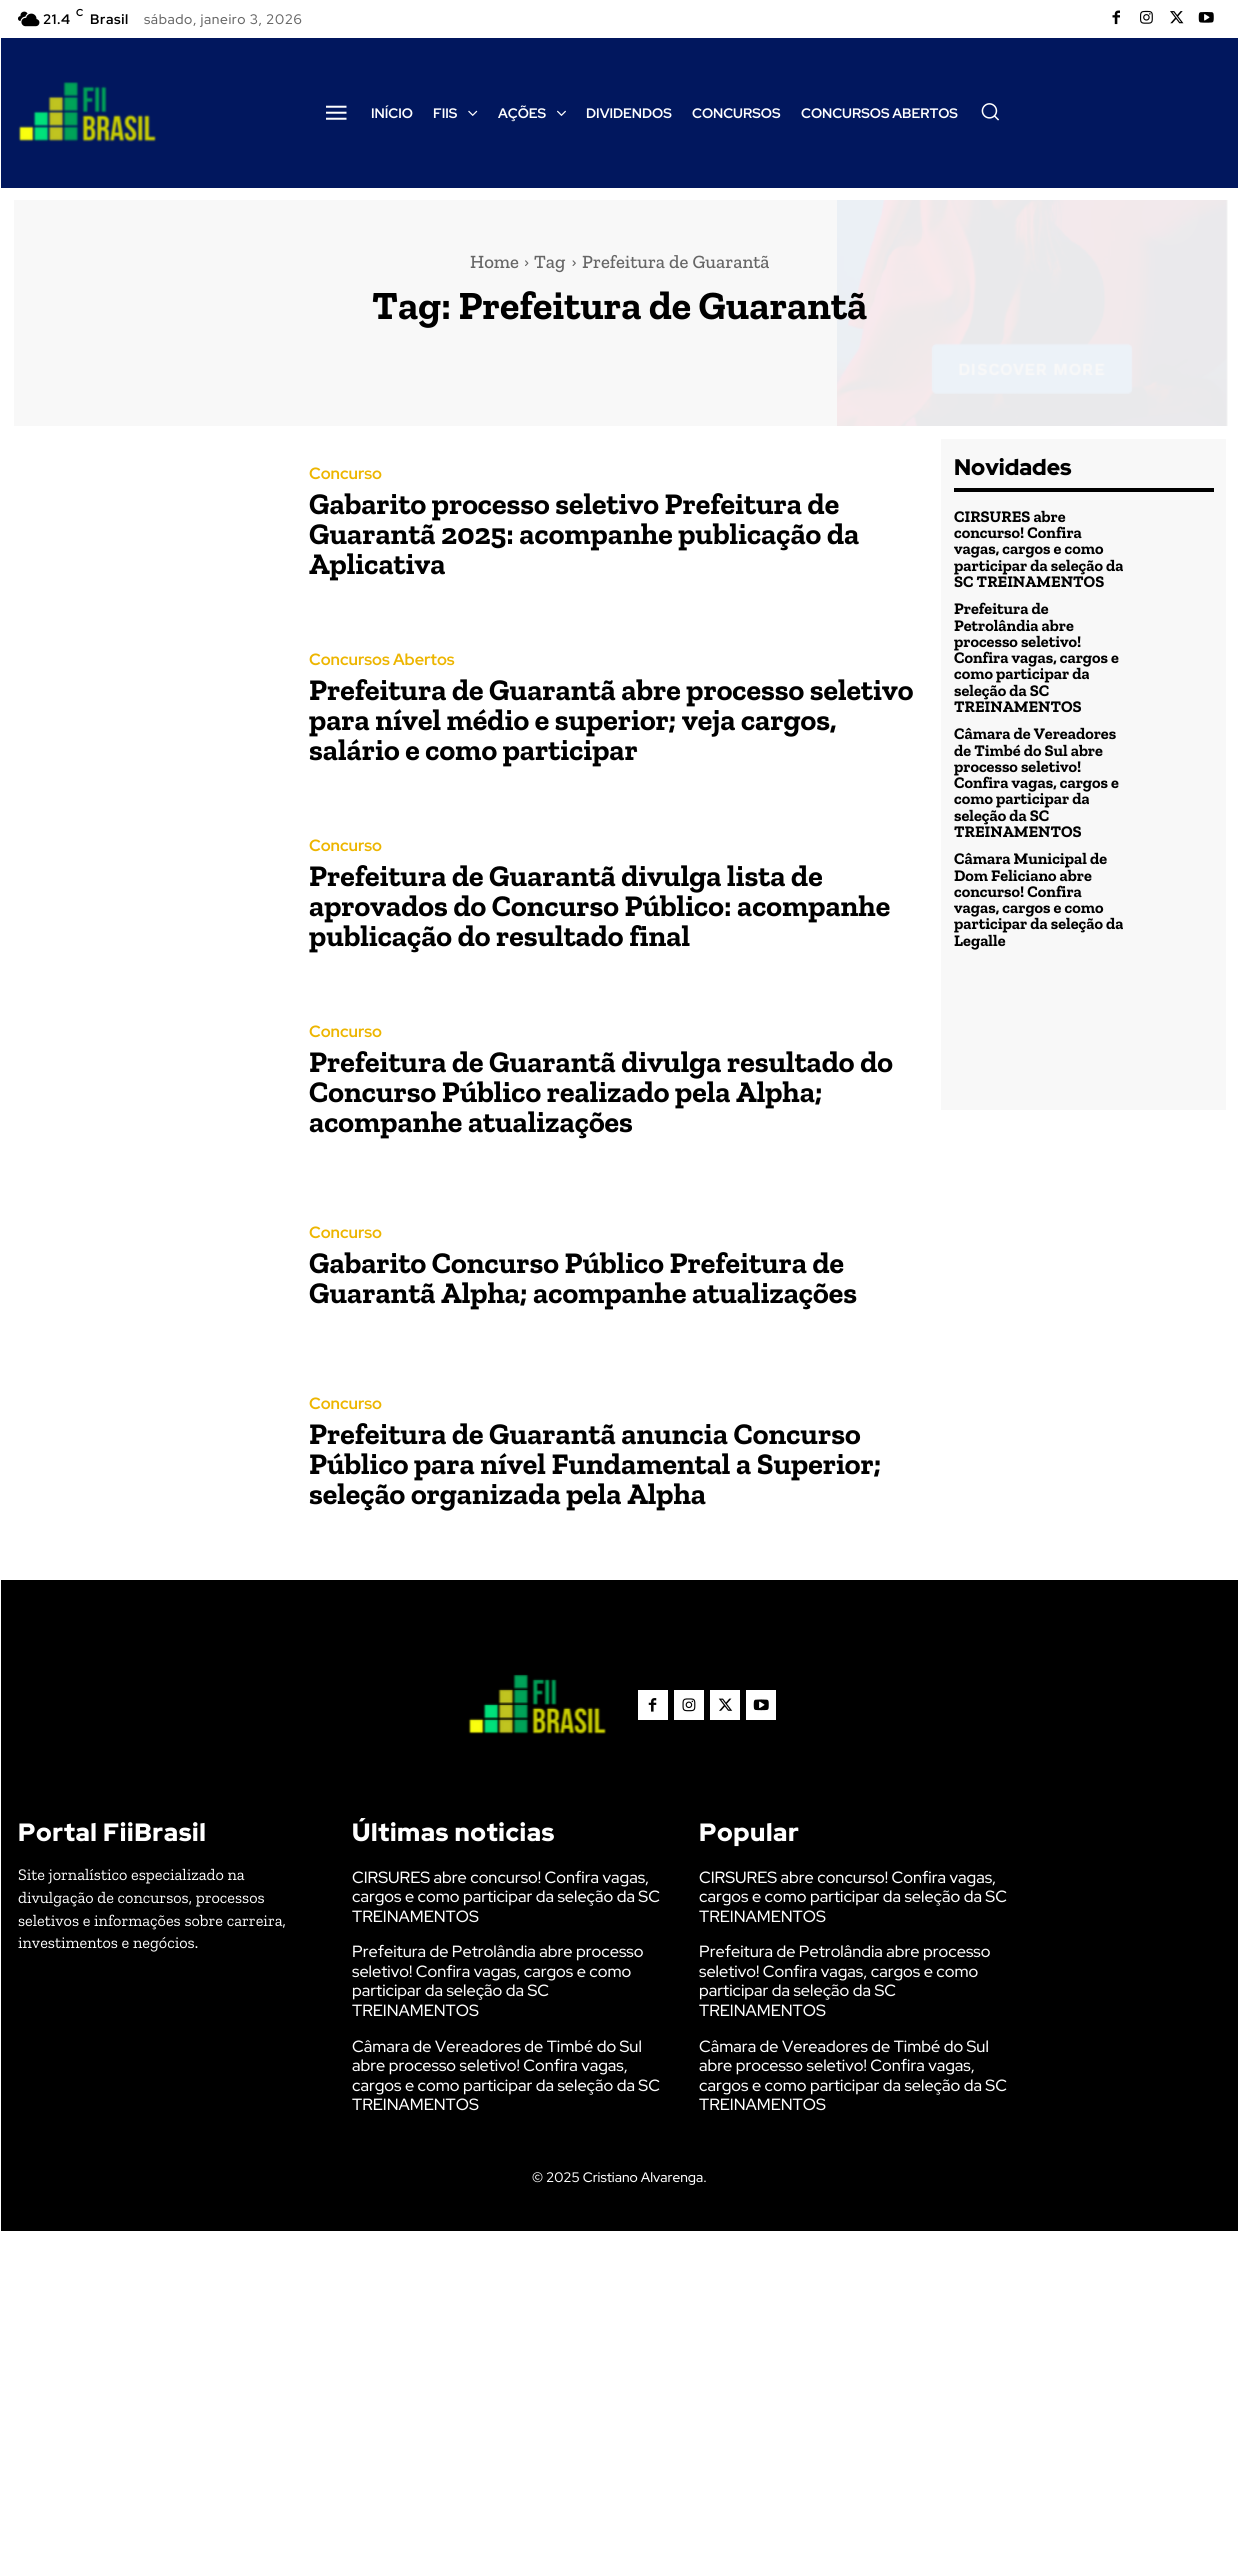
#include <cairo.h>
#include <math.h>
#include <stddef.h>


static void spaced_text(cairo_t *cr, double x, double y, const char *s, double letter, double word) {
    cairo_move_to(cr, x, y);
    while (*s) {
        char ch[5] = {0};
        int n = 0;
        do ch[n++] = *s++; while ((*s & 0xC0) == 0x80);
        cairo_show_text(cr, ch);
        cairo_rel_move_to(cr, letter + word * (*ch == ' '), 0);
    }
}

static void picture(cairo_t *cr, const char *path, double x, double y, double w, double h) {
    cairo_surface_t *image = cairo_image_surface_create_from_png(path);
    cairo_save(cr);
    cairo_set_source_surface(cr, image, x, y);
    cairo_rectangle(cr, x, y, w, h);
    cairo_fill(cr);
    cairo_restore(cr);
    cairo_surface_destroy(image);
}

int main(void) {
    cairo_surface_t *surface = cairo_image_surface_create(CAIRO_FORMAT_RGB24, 1238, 2565);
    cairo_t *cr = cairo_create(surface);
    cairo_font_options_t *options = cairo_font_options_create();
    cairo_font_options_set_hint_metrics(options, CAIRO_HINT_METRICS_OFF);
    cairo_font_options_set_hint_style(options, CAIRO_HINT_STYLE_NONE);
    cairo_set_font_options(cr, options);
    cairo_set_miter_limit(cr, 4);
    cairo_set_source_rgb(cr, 1, 1, 1);
    cairo_paint(cr);
    picture(cr, "img1.png", 18, 11, 22, 16);
    cairo_select_font_face(cr, "Red Hat Display", CAIRO_FONT_SLANT_NORMAL, CAIRO_FONT_WEIGHT_BOLD);
    cairo_set_font_size(cr, 10);
    cairo_set_source_rgb(cr, 0, 0, 0);
    spaced_text(cr, 76, 16, "C", 0.6, 0);
    cairo_set_font_size(cr, 13.75);
    spaced_text(cr, 43, 24, "21.4", 0.6, 0);
    spaced_text(cr, 90, 24, "Brasil", 0.6, 0);
    cairo_select_font_face(cr, "Red Hat Display Medium", CAIRO_FONT_SLANT_NORMAL, CAIRO_FONT_WEIGHT_NORMAL);
    cairo_set_source_rgb(cr, 0.4, 0.4, 0.4);
    spaced_text(cr, 144, 24, "sábado, janeiro 3, 2026", 0.6, 0);
    picture(cr, "img2.png", 1112, 10, 8, 15);
    picture(cr, "img3.png", 1140, 10, 13, 14);
    picture(cr, "img4.png", 1170, 11, 14, 13);
    picture(cr, "img5.png", 1198, 12, 16, 11);
    cairo_set_source_rgb(cr, 0.004, 0.09, 0.369);
    cairo_rectangle(cr, 1, 38, 1237, 150);
    cairo_fill(cr);
    picture(cr, "img6.png", 18, 81, 139, 61);
    picture(cr, "img7.png", 326, 105, 21, 15);
    cairo_select_font_face(cr, "Red Hat Display", CAIRO_FONT_SLANT_NORMAL, CAIRO_FONT_WEIGHT_BOLD);
    cairo_set_source_rgb(cr, 1, 1, 1);
    cairo_move_to(cr, 371, 118);
    cairo_show_text(cr, "INÍCIO");
    cairo_move_to(cr, 433, 118);
    cairo_show_text(cr, "FIIS");
    picture(cr, "img8.png", 468, 110, 10, 6);
    cairo_move_to(cr, 498, 118);
    cairo_show_text(cr, "AÇÕES");
    picture(cr, "img9.png", 557, 110, 9, 6);
    cairo_move_to(cr, 586, 118);
    cairo_show_text(cr, "DIVIDENDOS");
    cairo_move_to(cr, 692, 118);
    cairo_show_text(cr, "CONCURSOS");
    cairo_move_to(cr, 801, 118);
    cairo_show_text(cr, "CONCURSOS ABERTOS");
    picture(cr, "img10.png", 981, 103, 19, 18);
    cairo_set_source_rgb(cr, 0.969, 0.969, 0.969);
    cairo_rectangle(cr, 14, 200, 1214, 226);
    cairo_fill(cr);
    picture(cr, "img11.png", 837, 200, 390, 226);
    cairo_select_font_face(cr, "Zilla Slab Medium", CAIRO_FONT_SLANT_NORMAL, CAIRO_FONT_WEIGHT_NORMAL);
    cairo_set_font_size(cr, 18.75);
    cairo_set_source_rgb(cr, 0.4, 0.4, 0.4);
    cairo_move_to(cr, 470, 268);
    cairo_show_text(cr, "Home");
    picture(cr, "img12.png", 525, 260, 4, 7);
    cairo_move_to(cr, 534, 268);
    cairo_show_text(cr, "Tag");
    picture(cr, "img13.png", 572, 260, 4, 6);
    cairo_move_to(cr, 582, 268);
    cairo_show_text(cr, "Prefeitura de Guarantã");
    cairo_select_font_face(cr, "Zilla Slab", CAIRO_FONT_SLANT_NORMAL, CAIRO_FONT_WEIGHT_BOLD);
    cairo_set_font_size(cr, 40);
    cairo_set_source_rgb(cr, 0, 0, 0);
    cairo_move_to(cr, 372, 319);
    cairo_show_text(cr, "Tag: Prefeitura de Guarantã");
    cairo_select_font_face(cr, "Red Hat Display", CAIRO_FONT_SLANT_NORMAL, CAIRO_FONT_WEIGHT_BOLD);
    cairo_set_font_size(cr, 16.25);
    cairo_set_source_rgb(cr, 0.929, 0.71, 0);
    cairo_move_to(cr, 309, 479);
    cairo_show_text(cr, "Concurso");
    cairo_select_font_face(cr, "Zilla Slab", CAIRO_FONT_SLANT_NORMAL, CAIRO_FONT_WEIGHT_BOLD);
    cairo_set_font_size(cr, 30);
    cairo_set_source_rgb(cr, 0, 0, 0);
    cairo_move_to(cr, 309, 514);
    cairo_show_text(cr, "Gabarito processo seletivo Prefeitura de");
    cairo_move_to(cr, 309, 544);
    cairo_show_text(cr, "Guarantã 2025: acompanhe publicação da");
    cairo_move_to(cr, 309, 574);
    cairo_show_text(cr, "Aplicativa");
    cairo_select_font_face(cr, "Red Hat Display", CAIRO_FONT_SLANT_NORMAL, CAIRO_FONT_WEIGHT_BOLD);
    cairo_set_font_size(cr, 16.25);
    cairo_set_source_rgb(cr, 0.929, 0.71, 0);
    cairo_move_to(cr, 309, 665);
    cairo_show_text(cr, "Concursos Abertos");
    cairo_select_font_face(cr, "Zilla Slab", CAIRO_FONT_SLANT_NORMAL, CAIRO_FONT_WEIGHT_BOLD);
    cairo_set_font_size(cr, 30);
    cairo_set_source_rgb(cr, 0, 0, 0);
    cairo_move_to(cr, 309, 700);
    cairo_show_text(cr, "Prefeitura de Guarantã abre processo seletivo");
    cairo_move_to(cr, 309, 730);
    cairo_show_text(cr, "para nível médio e superior; veja cargos,");
    cairo_move_to(cr, 309, 760);
    cairo_show_text(cr, "salário e como participar");
    cairo_select_font_face(cr, "Red Hat Display", CAIRO_FONT_SLANT_NORMAL, CAIRO_FONT_WEIGHT_BOLD);
    cairo_set_font_size(cr, 16.25);
    cairo_set_source_rgb(cr, 0.929, 0.71, 0);
    cairo_move_to(cr, 309, 851);
    cairo_show_text(cr, "Concurso");
    cairo_select_font_face(cr, "Zilla Slab", CAIRO_FONT_SLANT_NORMAL, CAIRO_FONT_WEIGHT_BOLD);
    cairo_set_font_size(cr, 30);
    cairo_set_source_rgb(cr, 0, 0, 0);
    cairo_move_to(cr, 309, 886);
    cairo_show_text(cr, "Prefeitura de Guarantã divulga lista de");
    cairo_move_to(cr, 309, 916);
    cairo_show_text(cr, "aprovados do Concurso Público: acompanhe");
    cairo_move_to(cr, 309, 946);
    cairo_show_text(cr, "publicação do resultado final");
    cairo_select_font_face(cr, "Red Hat Display", CAIRO_FONT_SLANT_NORMAL, CAIRO_FONT_WEIGHT_BOLD);
    cairo_set_font_size(cr, 16.25);
    cairo_set_source_rgb(cr, 0.929, 0.71, 0);
    cairo_move_to(cr, 309, 1037);
    cairo_show_text(cr, "Concurso");
    cairo_select_font_face(cr, "Zilla Slab", CAIRO_FONT_SLANT_NORMAL, CAIRO_FONT_WEIGHT_BOLD);
    cairo_set_font_size(cr, 30);
    cairo_set_source_rgb(cr, 0, 0, 0);
    cairo_move_to(cr, 309, 1072);
    cairo_show_text(cr, "Prefeitura de Guarantã divulga resultado do");
    cairo_move_to(cr, 309, 1102);
    cairo_show_text(cr, "Concurso Público realizado pela Alpha;");
    cairo_move_to(cr, 309, 1132);
    cairo_show_text(cr, "acompanhe atualizações");
    cairo_select_font_face(cr, "Red Hat Display", CAIRO_FONT_SLANT_NORMAL, CAIRO_FONT_WEIGHT_BOLD);
    cairo_set_font_size(cr, 16.25);
    cairo_set_source_rgb(cr, 0.929, 0.71, 0);
    cairo_move_to(cr, 309, 1238);
    cairo_show_text(cr, "Concurso");
    cairo_select_font_face(cr, "Zilla Slab", CAIRO_FONT_SLANT_NORMAL, CAIRO_FONT_WEIGHT_BOLD);
    cairo_set_font_size(cr, 30);
    cairo_set_source_rgb(cr, 0, 0, 0);
    cairo_move_to(cr, 309, 1273);
    cairo_show_text(cr, "Gabarito Concurso Público Prefeitura de");
    cairo_move_to(cr, 309, 1303);
    cairo_show_text(cr, "Guarantã Alpha; acompanhe atualizações");
    cairo_select_font_face(cr, "Red Hat Display", CAIRO_FONT_SLANT_NORMAL, CAIRO_FONT_WEIGHT_BOLD);
    cairo_set_font_size(cr, 16.25);
    cairo_set_source_rgb(cr, 0.929, 0.71, 0);
    cairo_move_to(cr, 309, 1409);
    cairo_show_text(cr, "Concurso");
    cairo_select_font_face(cr, "Zilla Slab", CAIRO_FONT_SLANT_NORMAL, CAIRO_FONT_WEIGHT_BOLD);
    cairo_set_font_size(cr, 30);
    cairo_set_source_rgb(cr, 0, 0, 0);
    cairo_move_to(cr, 309, 1444);
    cairo_show_text(cr, "Prefeitura de Guarantã anuncia Concurso");
    cairo_move_to(cr, 309, 1474);
    cairo_show_text(cr, "Público para nível Fundamental a Superior;");
    cairo_move_to(cr, 309, 1504);
    cairo_show_text(cr, "seleção organizada pela Alpha");
    cairo_set_source_rgb(cr, 0.969, 0.969, 0.969);
    cairo_rectangle(cr, 941, 439, 285, 671);
    cairo_fill(cr);
    cairo_set_source_rgb(cr, 0, 0, 0);
    cairo_rectangle(cr, 954, 488, 260, 4);
    cairo_fill(cr);
    cairo_select_font_face(cr, "Red Hat Display Black", CAIRO_FONT_SLANT_NORMAL, CAIRO_FONT_WEIGHT_NORMAL);
    cairo_set_font_size(cr, 22.5);
    cairo_move_to(cr, 954, 475);
    cairo_show_text(cr, "Novidades");
    cairo_select_font_face(cr, "Zilla Slab", CAIRO_FONT_SLANT_NORMAL, CAIRO_FONT_WEIGHT_BOLD);
    cairo_set_font_size(cr, 16.25);
    cairo_move_to(cr, 954, 522);
    cairo_show_text(cr, "CIRSURES abre");
    cairo_move_to(cr, 954, 538);
    cairo_show_text(cr, "concurso! Confira");
    cairo_move_to(cr, 954, 554);
    cairo_show_text(cr, "vagas, cargos e como");
    cairo_move_to(cr, 954, 571);
    cairo_show_text(cr, "participar da seleção da");
    cairo_move_to(cr, 954, 587);
    cairo_show_text(cr, "SC TREINAMENTOS");
    cairo_move_to(cr, 954, 614);
    cairo_show_text(cr, "Prefeitura de");
    cairo_move_to(cr, 954, 631);
    cairo_show_text(cr, "Petrolândia abre");
    cairo_move_to(cr, 954, 647);
    cairo_show_text(cr, "processo seletivo!");
    cairo_move_to(cr, 954, 663);
    cairo_show_text(cr, "Confira vagas, cargos e");
    cairo_move_to(cr, 954, 679);
    cairo_show_text(cr, "como participar da");
    cairo_move_to(cr, 954, 696);
    cairo_show_text(cr, "seleção da SC");
    cairo_move_to(cr, 954, 712);
    cairo_show_text(cr, "TREINAMENTOS");
    cairo_move_to(cr, 954, 739);
    cairo_show_text(cr, "Câmara de Vereadores");
    cairo_move_to(cr, 954, 756);
    cairo_show_text(cr, "de Timbé do Sul abre");
    cairo_move_to(cr, 954, 772);
    cairo_show_text(cr, "processo seletivo!");
    cairo_move_to(cr, 954, 788);
    cairo_show_text(cr, "Confira vagas, cargos e");
    cairo_move_to(cr, 954, 804);
    cairo_show_text(cr, "como participar da");
    cairo_move_to(cr, 954, 821);
    cairo_show_text(cr, "seleção da SC");
    cairo_move_to(cr, 954, 837);
    cairo_show_text(cr, "TREINAMENTOS");
    cairo_move_to(cr, 954, 864);
    cairo_show_text(cr, "Câmara Municipal de");
    cairo_move_to(cr, 954, 881);
    cairo_show_text(cr, "Dom Feliciano abre");
    cairo_move_to(cr, 954, 897);
    cairo_show_text(cr, "concurso! Confira");
    cairo_move_to(cr, 954, 913);
    cairo_show_text(cr, "vagas, cargos e como");
    cairo_move_to(cr, 954, 929);
    cairo_show_text(cr, "participar da seleção da");
    cairo_move_to(cr, 954, 946);
    cairo_show_text(cr, "Legalle");
    cairo_rectangle(cr, 1, 1580, 1237, 651);
    cairo_fill(cr);
    picture(cr, "img14.png", 468, 1674, 139, 60);
    cairo_set_source_rgb(cr, 1, 1, 1);
    cairo_rectangle(cr, 638, 1690, 30, 30);
    cairo_fill(cr);
    picture(cr, "img15.png", 648, 1698, 9, 14);
    cairo_rectangle(cr, 674, 1690, 30, 30);
    cairo_fill(cr);
    picture(cr, "img16.png", 682, 1698, 14, 14);
    cairo_rectangle(cr, 710, 1690, 30, 30);
    cairo_fill(cr);
    picture(cr, "img17.png", 718, 1698, 15, 13);
    cairo_rectangle(cr, 746, 1690, 30, 30);
    cairo_fill(cr);
    picture(cr, "img18.png", 753, 1699, 16, 12);
    cairo_select_font_face(cr, "Red Hat Display Black", CAIRO_FONT_SLANT_NORMAL, CAIRO_FONT_WEIGHT_NORMAL);
    cairo_set_font_size(cr, 25);
    spaced_text(cr, 18, 1841, "Portal FiiBrasil", 0.6, 0);
    cairo_select_font_face(cr, "Zilla Slab", CAIRO_FONT_SLANT_NORMAL, CAIRO_FONT_WEIGHT_NORMAL);
    cairo_set_font_size(cr, 16.25);
    cairo_move_to(cr, 18, 1880);
    cairo_show_text(cr, "Site jornalístico especializado na");
    cairo_move_to(cr, 18, 1903);
    cairo_show_text(cr, "divulgação de concursos, processos");
    cairo_move_to(cr, 18, 1926);
    cairo_show_text(cr, "seletivos e informações sobre carreira,");
    cairo_move_to(cr, 18, 1948);
    cairo_show_text(cr, "investimentos e negócios.");
    cairo_select_font_face(cr, "Red Hat Display Black", CAIRO_FONT_SLANT_NORMAL, CAIRO_FONT_WEIGHT_NORMAL);
    cairo_set_font_size(cr, 25);
    spaced_text(cr, 352, 1841, "Últimas noticias", 0.6, 0);
    cairo_select_font_face(cr, "Red Hat Display Medium", CAIRO_FONT_SLANT_NORMAL, CAIRO_FONT_WEIGHT_NORMAL);
    cairo_set_font_size(cr, 16.25);
    cairo_move_to(cr, 352, 1883);
    cairo_show_text(cr, "CIRSURES abre concurso! Confira vagas,");
    cairo_move_to(cr, 352, 1902);
    cairo_show_text(cr, "cargos e como participar da seleção da SC");
    cairo_move_to(cr, 352, 1922);
    cairo_show_text(cr, "TREINAMENTOS");
    cairo_move_to(cr, 352, 1957);
    cairo_show_text(cr, "Prefeitura de Petrolândia abre processo");
    cairo_move_to(cr, 352, 1977);
    cairo_show_text(cr, "seletivo! Confira vagas, cargos e como");
    cairo_move_to(cr, 352, 1996);
    cairo_show_text(cr, "participar da seleção da SC");
    cairo_move_to(cr, 352, 2016);
    cairo_show_text(cr, "TREINAMENTOS");
    cairo_move_to(cr, 352, 2052);
    cairo_show_text(cr, "Câmara de Vereadores de Timbé do Sul");
    cairo_move_to(cr, 352, 2071);
    cairo_show_text(cr, "abre processo seletivo! Confira vagas,");
    cairo_move_to(cr, 352, 2091);
    cairo_show_text(cr, "cargos e como participar da seleção da SC");
    cairo_move_to(cr, 352, 2110);
    cairo_show_text(cr, "TREINAMENTOS");
    cairo_select_font_face(cr, "Red Hat Display Black", CAIRO_FONT_SLANT_NORMAL, CAIRO_FONT_WEIGHT_NORMAL);
    cairo_set_font_size(cr, 25);
    spaced_text(cr, 699, 1841, "Popular", 0.6, 0);
    cairo_select_font_face(cr, "Red Hat Display Medium", CAIRO_FONT_SLANT_NORMAL, CAIRO_FONT_WEIGHT_NORMAL);
    cairo_set_font_size(cr, 16.25);
    cairo_move_to(cr, 699, 1883);
    cairo_show_text(cr, "CIRSURES abre concurso! Confira vagas,");
    cairo_move_to(cr, 699, 1902);
    cairo_show_text(cr, "cargos e como participar da seleção da SC");
    cairo_move_to(cr, 699, 1922);
    cairo_show_text(cr, "TREINAMENTOS");
    cairo_move_to(cr, 699, 1957);
    cairo_show_text(cr, "Prefeitura de Petrolândia abre processo");
    cairo_move_to(cr, 699, 1977);
    cairo_show_text(cr, "seletivo! Confira vagas, cargos e como");
    cairo_move_to(cr, 699, 1996);
    cairo_show_text(cr, "participar da seleção da SC");
    cairo_move_to(cr, 699, 2016);
    cairo_show_text(cr, "TREINAMENTOS");
    cairo_move_to(cr, 699, 2052);
    cairo_show_text(cr, "Câmara de Vereadores de Timbé do Sul");
    cairo_move_to(cr, 699, 2071);
    cairo_show_text(cr, "abre processo seletivo! Confira vagas,");
    cairo_move_to(cr, 699, 2091);
    cairo_show_text(cr, "cargos e como participar da seleção da SC");
    cairo_move_to(cr, 699, 2110);
    cairo_show_text(cr, "TREINAMENTOS");
    cairo_set_font_size(cr, 13.75);
    cairo_move_to(cr, 532, 2182);
    cairo_show_text(cr, "© 2025 Cristiano Alvarenga.");
    cairo_surface_write_to_png(surface, "page.png");
    cairo_font_options_destroy(options);
    cairo_destroy(cr);
    cairo_surface_destroy(surface);
    return 0;
}
